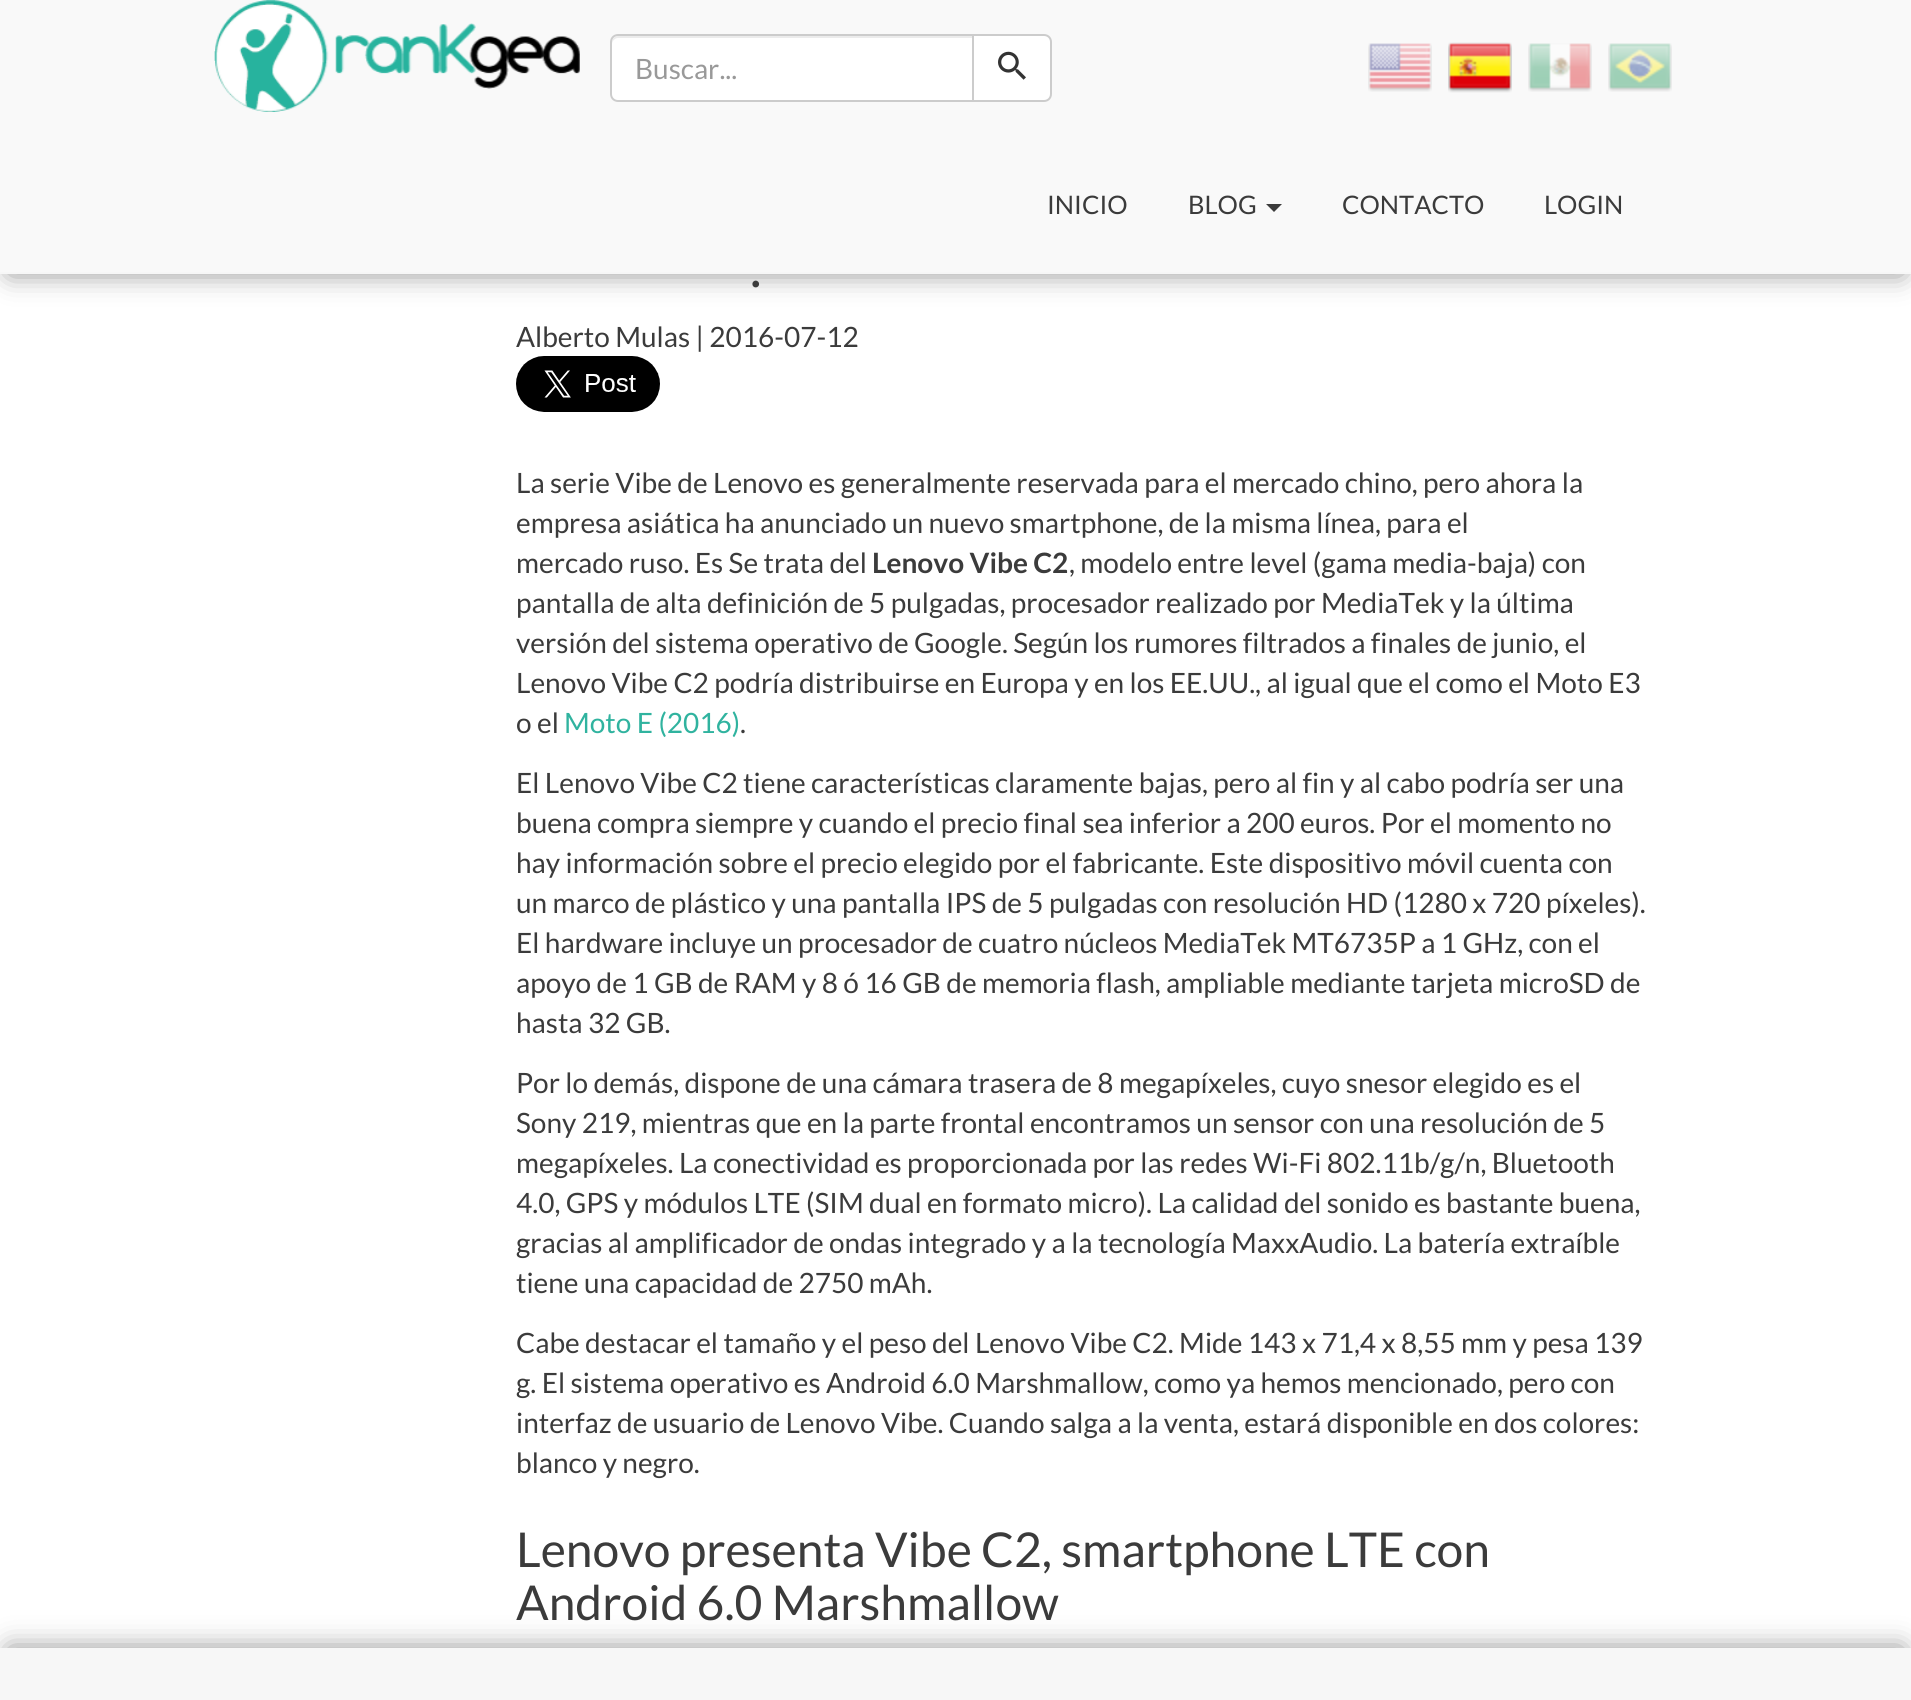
#include <cairo.h>
#include <math.h>
#include <stddef.h>


static void round_rect(cairo_t *cr, double x, double y, double w, double h, double r) {
    cairo_new_sub_path(cr);
    cairo_arc(cr, x + w - r, y + h - r, r, 0, M_PI / 2);
    cairo_arc(cr, x + r, y + h - r, r, M_PI / 2, M_PI);
    cairo_arc(cr, x + r, y + r, r, M_PI, 1.5 * M_PI);
    cairo_arc(cr, x + w - r, y + r, r, 1.5 * M_PI, 2 * M_PI);
    cairo_close_path(cr);
}

static void shadow(cairo_t *cr, double x, double y, double w, double h, double r, double blur, double alpha) {
    cairo_push_group_with_content(cr, CAIRO_CONTENT_ALPHA);
    cairo_set_operator(cr, CAIRO_OPERATOR_SOURCE);
    for (int i = 15; i >= -15 && fmin(w, h) + blur * i / 3 > 0; i -= 2) {
        double e = blur * i / 6;
        cairo_set_source_rgba(cr, 0, 0, 0, alpha * erfc((i - 1) / 8.5) / 2);
        round_rect(cr, x - e, y - e, w + 2 * e, h + 2 * e, fmax(0, fmin(r + e + blur * .6, fmin(w, h) / 2 + e)));
        cairo_fill(cr);
    }
    cairo_pattern_t *soft = cairo_pop_group(cr);
    cairo_mask(cr, soft);
    cairo_pattern_destroy(soft);
}

static void picture(cairo_t *cr, const char *path, double x, double y, double w, double h) {
    cairo_surface_t *image = cairo_image_surface_create_from_png(path);
    cairo_save(cr);
    cairo_set_source_surface(cr, image, x, y);
    cairo_rectangle(cr, x, y, w, h);
    cairo_fill(cr);
    cairo_restore(cr);
    cairo_surface_destroy(image);
}

int main(void) {
    cairo_surface_t *surface = cairo_image_surface_create(CAIRO_FORMAT_RGB24, 1911, 1700);
    cairo_t *cr = cairo_create(surface);
    cairo_font_options_t *options = cairo_font_options_create();
    cairo_font_options_set_hint_metrics(options, CAIRO_HINT_METRICS_OFF);
    cairo_font_options_set_hint_style(options, CAIRO_HINT_STYLE_NONE);
    cairo_set_font_options(cr, options);
    cairo_set_miter_limit(cr, 4);
    cairo_set_source_rgb(cr, 1, 1, 1);
    cairo_paint(cr);
    cairo_set_source_rgb(cr, 0.498, 0.498, 0.498);
    shadow(cr, 10, 18, 1892, 254, 0, 14, 1);
    cairo_set_source_rgb(cr, 0.973, 0.973, 0.973);
    cairo_rectangle(cr, 0, 0, 1911, 272);
    cairo_fill(cr);
    cairo_set_source_rgb(cr, 0.965, 0.965, 0.965);
    cairo_rectangle(cr, 0, 272, 1911, 2);
    cairo_fill(cr);
    picture(cr, "img1.png", 214, 0, 366, 112);
    cairo_set_source_rgb(cr, 1, 1, 1);
    cairo_new_path(cr);
    cairo_move_to(cr, 618, 34);
    cairo_line_to(cr, 974, 34);
    cairo_line_to(cr, 974, 102);
    cairo_line_to(cr, 618, 102);
    cairo_curve_to(cr, 613.5, 102, 610, 98.5, 610, 94);
    cairo_line_to(cr, 610, 42);
    cairo_curve_to(cr, 610, 37.5, 613.5, 34, 618, 34);
    cairo_close_path(cr);
    cairo_fill(cr);
    cairo_set_source_rgb(cr, 0.925, 0.925, 0.925);
    cairo_new_path(cr);
    cairo_move_to(cr, 618, 38);
    cairo_line_to(cr, 972, 38);
    cairo_line_to(cr, 972, 36);
    cairo_line_to(cr, 618, 36);
    cairo_curve_to(cr, 615, 36, 612, 39, 612, 42);
    cairo_line_to(cr, 612, 44);
    cairo_curve_to(cr, 612, 41, 615, 38, 618, 38);
    cairo_close_path(cr);
    cairo_fill(cr);
    cairo_new_path(cr);
    cairo_move_to(cr, 618, 35);
    cairo_line_to(cr, 973, 35);
    cairo_line_to(cr, 973, 101);
    cairo_line_to(cr, 618, 101);
    cairo_curve_to(cr, 614, 101, 611, 98, 611, 94);
    cairo_line_to(cr, 611, 42);
    cairo_curve_to(cr, 611, 38, 614, 35, 618, 35);
    cairo_close_path(cr);
    cairo_set_source_rgb(cr, 0.8, 0.8, 0.8);
    cairo_stroke(cr);
    cairo_select_font_face(cr, "Lato", CAIRO_FONT_SLANT_NORMAL, CAIRO_FONT_WEIGHT_NORMAL);
    cairo_set_font_size(cr, 28);
    cairo_set_source_rgb(cr, 0.6, 0.6, 0.6);
    cairo_move_to(cr, 635, 79);
    cairo_show_text(cr, "Buscar...");
    cairo_set_source_rgb(cr, 1, 1, 1);
    cairo_new_path(cr);
    cairo_move_to(cr, 973, 35);
    cairo_line_to(cr, 1044, 35);
    cairo_curve_to(cr, 1048, 35, 1051, 38, 1051, 42);
    cairo_line_to(cr, 1051, 94);
    cairo_curve_to(cr, 1051, 98, 1048, 101, 1044, 101);
    cairo_line_to(cr, 973, 101);
    cairo_close_path(cr);
    cairo_fill_preserve(cr);
    cairo_set_source_rgb(cr, 0.8, 0.8, 0.8);
    cairo_stroke(cr);
    picture(cr, "img2.png", 998, 51, 28, 29);
    picture(cr, "img3.png", 1368, 43, 64, 49);
    picture(cr, "img4.png", 1448, 42, 64, 51);
    picture(cr, "img5.png", 1528, 43, 64, 49);
    picture(cr, "img6.png", 1608, 43, 64, 49);
    cairo_set_font_size(cr, 25.5);
    cairo_set_source_rgb(cr, 0.231, 0.231, 0.231);
    cairo_move_to(cr, 1047, 214);
    cairo_show_text(cr, "INICIO");
    cairo_move_to(cr, 1188, 214);
    cairo_show_text(cr, "BLOG");
    cairo_new_path(cr);
    cairo_move_to(cr, 1266, 204);
    cairo_line_to(cr, 1282, 204);
    cairo_line_to(cr, 1274, 212);
    cairo_close_path(cr);
    cairo_fill(cr);
    cairo_move_to(cr, 1342, 214);
    cairo_show_text(cr, "CONTACTO");
    cairo_move_to(cr, 1544, 214);
    cairo_show_text(cr, "LOGIN");
    cairo_set_font_size(cr, 54);
    cairo_move_to(cr, 750, 287);
    cairo_show_text(cr, ".");
    cairo_set_font_size(cr, 28);
    cairo_move_to(cr, 516, 347);
    cairo_show_text(cr, "Alberto Mulas | 2016-07-12");
    picture(cr, "img7.png", 516, 356, 144, 56);
    cairo_move_to(cr, 516, 493);
    cairo_show_text(cr, "La serie Vibe de Lenovo es generalmente reservada para el mercado chino, pero ahora la");
    cairo_move_to(cr, 516, 533);
    cairo_show_text(cr, "empresa asiática ha anunciado un nuevo smartphone, de la misma línea, para el");
    cairo_move_to(cr, 516, 573);
    cairo_show_text(cr, "mercado ruso. Es Se trata del");
    cairo_select_font_face(cr, "Lato", CAIRO_FONT_SLANT_NORMAL, CAIRO_FONT_WEIGHT_BOLD);
    cairo_move_to(cr, 872, 573);
    cairo_show_text(cr, "Lenovo Vibe C2");
    cairo_select_font_face(cr, "Lato", CAIRO_FONT_SLANT_NORMAL, CAIRO_FONT_WEIGHT_NORMAL);
    cairo_move_to(cr, 1069, 573);
    cairo_show_text(cr, ", modelo entre level (gama media-baja) con");
    cairo_move_to(cr, 516, 613);
    cairo_show_text(cr, "pantalla de alta definición de 5 pulgadas, procesador realizado por MediaTek y la última");
    cairo_move_to(cr, 516, 653);
    cairo_show_text(cr, "versión del sistema operativo de Google. Según los rumores filtrados a finales de junio, el");
    cairo_move_to(cr, 516, 693);
    cairo_show_text(cr, "Lenovo Vibe C2 podría distribuirse en Europa y en los EE.UU., al igual que el como el Moto E3");
    cairo_move_to(cr, 516, 733);
    cairo_show_text(cr, "o el");
    cairo_set_source_rgb(cr, 0.188, 0.702, 0.624);
    cairo_move_to(cr, 564, 733);
    cairo_show_text(cr, "Moto E (2016)");
    cairo_set_source_rgb(cr, 0.231, 0.231, 0.231);
    cairo_move_to(cr, 740, 733);
    cairo_show_text(cr, ".");
    cairo_move_to(cr, 516, 793);
    cairo_show_text(cr, "El Lenovo Vibe C2 tiene características claramente bajas, pero al fin y al cabo podría ser una");
    cairo_move_to(cr, 516, 833);
    cairo_show_text(cr, "buena compra siempre y cuando el precio final sea inferior a 200 euros. Por el momento no");
    cairo_move_to(cr, 516, 873);
    cairo_show_text(cr, "hay información sobre el precio elegido por el fabricante. Este dispositivo móvil cuenta con");
    cairo_move_to(cr, 516, 913);
    cairo_show_text(cr, "un marco de plástico y una pantalla IPS de 5 pulgadas con resolución HD (1280 x 720 píxeles).");
    cairo_move_to(cr, 516, 953);
    cairo_show_text(cr, "El hardware incluye un procesador de cuatro núcleos MediaTek MT6735P a 1 GHz, con el");
    cairo_move_to(cr, 516, 993);
    cairo_show_text(cr, "apoyo de 1 GB de RAM y 8 ó 16 GB de memoria flash, ampliable mediante tarjeta microSD de");
    cairo_move_to(cr, 516, 1033);
    cairo_show_text(cr, "hasta 32 GB.");
    cairo_move_to(cr, 516, 1093);
    cairo_show_text(cr, "Por lo demás, dispone de una cámara trasera de 8 megapíxeles, cuyo snesor elegido es el");
    cairo_move_to(cr, 516, 1133);
    cairo_show_text(cr, "Sony 219, mientras que en la parte frontal encontramos un sensor con una resolución de 5");
    cairo_move_to(cr, 516, 1173);
    cairo_show_text(cr, "megapíxeles. La conectividad es proporcionada por las redes Wi-Fi 802.11b/g/n, Bluetooth");
    cairo_move_to(cr, 516, 1213);
    cairo_show_text(cr, "4.0, GPS y módulos LTE (SIM dual en formato micro). La calidad del sonido es bastante buena,");
    cairo_move_to(cr, 516, 1253);
    cairo_show_text(cr, "gracias al amplificador de ondas integrado y a la tecnología MaxxAudio. La batería extraíble");
    cairo_move_to(cr, 516, 1293);
    cairo_show_text(cr, "tiene una capacidad de 2750 mAh.");
    cairo_move_to(cr, 516, 1353);
    cairo_show_text(cr, "Cabe destacar el tamaño y el peso del Lenovo Vibe C2. Mide 143 x 71,4 x 8,55 mm y pesa 139");
    cairo_move_to(cr, 516, 1393);
    cairo_show_text(cr, "g. El sistema operativo es Android 6.0 Marshmallow, como ya hemos mencionado, pero con");
    cairo_move_to(cr, 516, 1433);
    cairo_show_text(cr, "interfaz de usuario de Lenovo Vibe. Cuando salga a la venta, estará disponible en dos colores:");
    cairo_move_to(cr, 516, 1473);
    cairo_show_text(cr, "blanco y negro.");
    cairo_set_font_size(cr, 48);
    cairo_move_to(cr, 516, 1567);
    cairo_show_text(cr, "Lenovo presenta Vibe C2, smartphone LTE con");
    cairo_set_source_rgb(cr, 0.498, 0.498, 0.498);
    shadow(cr, 10, 1650, 1892, 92, 0, 14, 1);
    cairo_set_source_rgb(cr, 0.231, 0.231, 0.231);
    cairo_move_to(cr, 516, 1620);
    cairo_show_text(cr, "Android 6.0 Marshmallow");
    cairo_set_source_rgb(cr, 0.965, 0.965, 0.965);
    cairo_rectangle(cr, 0, 1648, 1911, 52);
    cairo_fill(cr);
    cairo_surface_write_to_png(surface, "page.png");
    cairo_font_options_destroy(options);
    cairo_destroy(cr);
    cairo_surface_destroy(surface);
    return 0;
}
